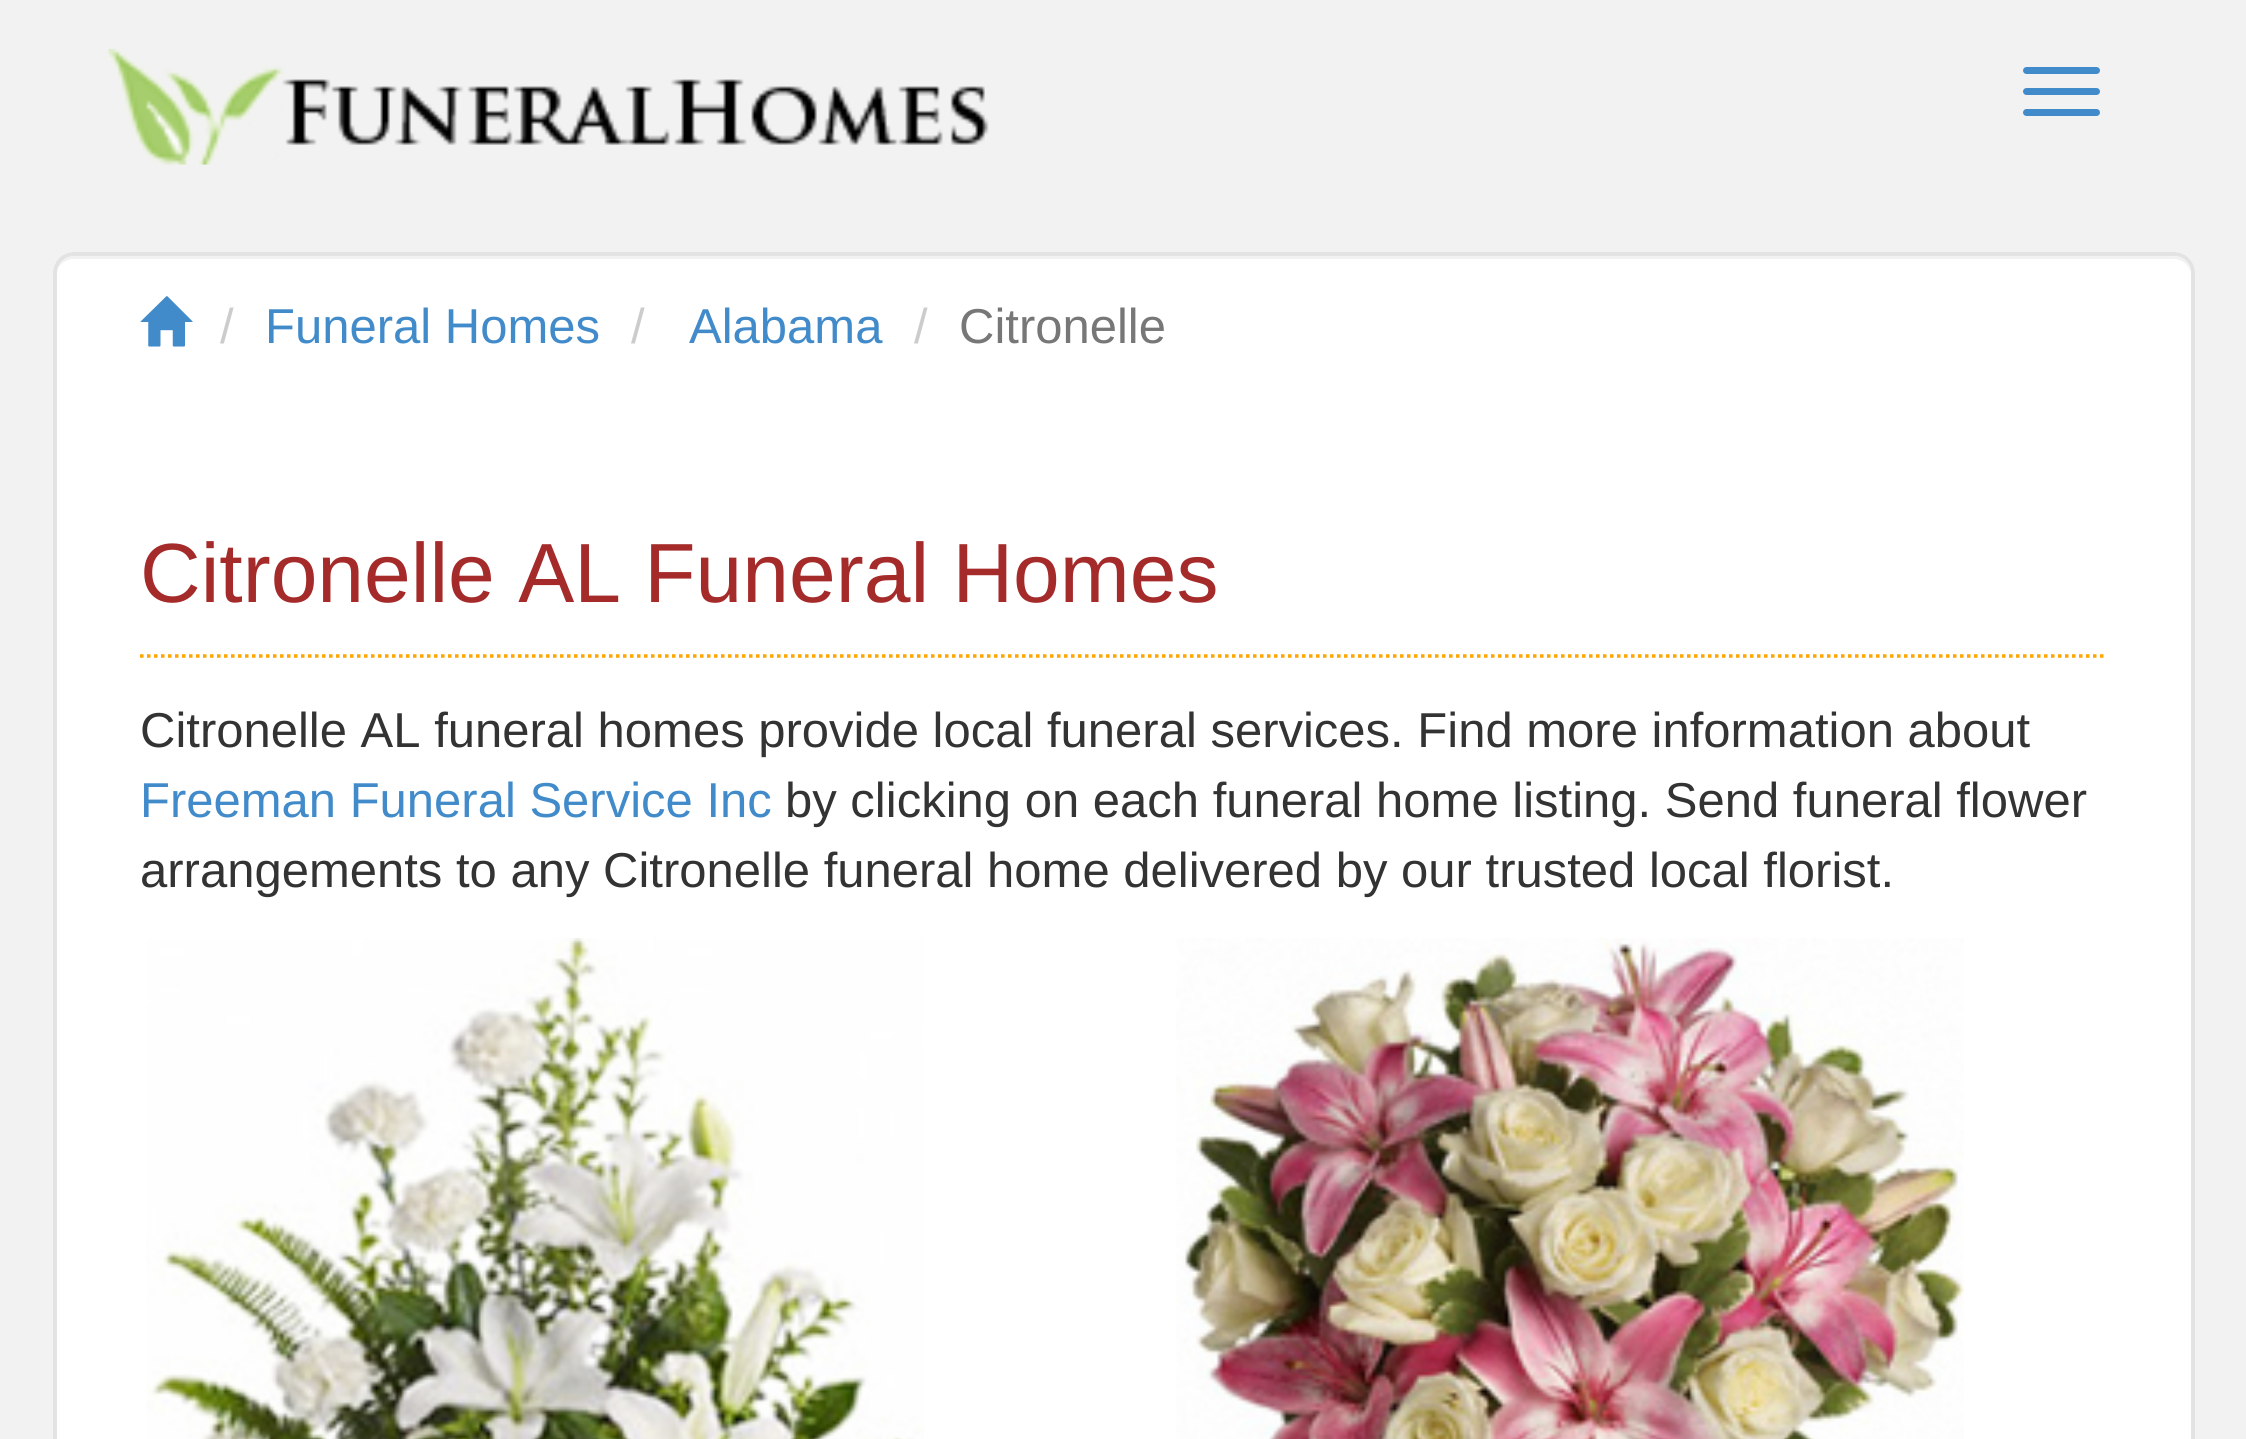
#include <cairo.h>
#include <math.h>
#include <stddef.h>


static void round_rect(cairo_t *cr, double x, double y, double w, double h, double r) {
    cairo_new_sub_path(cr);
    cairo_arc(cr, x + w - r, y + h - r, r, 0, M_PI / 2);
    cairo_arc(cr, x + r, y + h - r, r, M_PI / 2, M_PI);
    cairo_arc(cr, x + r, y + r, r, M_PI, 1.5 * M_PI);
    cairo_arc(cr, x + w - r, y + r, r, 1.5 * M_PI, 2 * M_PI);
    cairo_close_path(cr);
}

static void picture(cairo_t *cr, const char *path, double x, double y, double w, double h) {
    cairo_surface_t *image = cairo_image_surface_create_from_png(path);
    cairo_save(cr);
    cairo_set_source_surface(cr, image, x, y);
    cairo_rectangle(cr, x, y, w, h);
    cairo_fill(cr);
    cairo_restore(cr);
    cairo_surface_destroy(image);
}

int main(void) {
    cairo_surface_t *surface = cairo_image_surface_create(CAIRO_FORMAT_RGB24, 2246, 1439);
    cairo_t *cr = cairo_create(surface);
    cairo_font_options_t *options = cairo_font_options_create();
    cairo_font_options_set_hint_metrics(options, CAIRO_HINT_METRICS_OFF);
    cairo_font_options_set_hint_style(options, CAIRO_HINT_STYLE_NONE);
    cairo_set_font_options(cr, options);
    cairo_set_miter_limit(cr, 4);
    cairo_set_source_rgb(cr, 0.949, 0.949, 0.949);
    cairo_paint(cr);
    picture(cr, "img1.png", 108, 49, 881, 116);
    cairo_set_source_rgb(cr, 0.259, 0.545, 0.792);
    round_rect(cr, 2023, 67, 77, 7, 3.5);
    cairo_fill(cr);
    round_rect(cr, 2023, 88, 77, 7, 3.5);
    cairo_fill(cr);
    round_rect(cr, 2023, 109, 77, 7, 3.5);
    cairo_fill(cr);
    cairo_set_source_rgb(cr, 1, 1, 1);
    round_rect(cr, 53, 252, 2142, 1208, 21);
    cairo_fill(cr);
    cairo_set_source_rgb(cr, 0.949, 0.949, 0.949);
    cairo_new_path(cr);
    cairo_move_to(cr, 74, 259);
    cairo_line_to(cr, 2174, 259);
    cairo_curve_to(cr, 2183, 259, 2191, 267, 2191, 276);
    cairo_curve_to(cr, 2191, 265, 2185, 256, 2173, 256);
    cairo_line_to(cr, 74, 256);
    cairo_curve_to(cr, 62, 256, 56, 265, 56, 276);
    cairo_curve_to(cr, 56, 267, 64, 259, 74, 259);
    cairo_close_path(cr);
    cairo_fill(cr);
    round_rect(cr, 55, 254, 2138, 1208, 19);
    cairo_set_source_rgb(cr, 0.89, 0.89, 0.89);
    cairo_set_line_width(cr, 4);
    cairo_stroke(cr);
    picture(cr, "img2.png", 140, 296, 53, 51);
    cairo_select_font_face(cr, "Liberation Sans", CAIRO_FONT_SLANT_NORMAL, CAIRO_FONT_WEIGHT_NORMAL);
    cairo_set_font_size(cr, 49);
    cairo_set_source_rgb(cr, 0.8, 0.8, 0.8);
    cairo_move_to(cr, 220, 343);
    cairo_show_text(cr, "/");
    cairo_set_source_rgb(cr, 0.259, 0.545, 0.792);
    cairo_move_to(cr, 265, 343);
    cairo_show_text(cr, "Funeral Homes");
    cairo_set_source_rgb(cr, 0.8, 0.8, 0.8);
    cairo_move_to(cr, 631, 343);
    cairo_show_text(cr, "/");
    cairo_set_source_rgb(cr, 0.259, 0.545, 0.792);
    cairo_move_to(cr, 689, 343);
    cairo_show_text(cr, "Alabama");
    cairo_set_source_rgb(cr, 0.8, 0.8, 0.8);
    cairo_move_to(cr, 914, 343);
    cairo_show_text(cr, "/");
    cairo_set_source_rgb(cr, 0.467, 0.467, 0.467);
    cairo_move_to(cr, 959, 343);
    cairo_show_text(cr, "Citronelle");
    cairo_new_path(cr);
    cairo_move_to(cr, 140, 656);
    cairo_line_to(cr, 2107, 656);
    cairo_set_source_rgb(cr, 1, 0.647, 0);
    cairo_set_line_width(cr, 3.5);
    cairo_set_dash(cr, (double[]){3.5, 3.5}, 2, 0);
    cairo_stroke(cr);
    cairo_set_font_size(cr, 84);
    cairo_set_source_rgb(cr, 0.647, 0.165, 0.165);
    cairo_move_to(cr, 140, 602);
    cairo_show_text(cr, "Citronelle AL Funeral Homes");
    cairo_set_font_size(cr, 49);
    cairo_set_source_rgb(cr, 0.2, 0.2, 0.2);
    cairo_move_to(cr, 140, 747);
    cairo_show_text(cr, "Citronelle AL funeral homes provide local funeral services. Find more information about");
    cairo_set_source_rgb(cr, 0.259, 0.545, 0.792);
    cairo_move_to(cr, 140, 817);
    cairo_show_text(cr, "Freeman Funeral Service Inc");
    cairo_set_source_rgb(cr, 0.2, 0.2, 0.2);
    cairo_move_to(cr, 785, 817);
    cairo_show_text(cr, "by clicking on each funeral home listing. Send funeral flower");
    cairo_move_to(cr, 140, 887);
    cairo_show_text(cr, "arrangements to any Citronelle funeral home delivered by our trusted local florist.");
    picture(cr, "img3.png", 146, 938, 778, 501);
    picture(cr, "img4.png", 1176, 938, 788, 501);
    cairo_surface_write_to_png(surface, "page.png");
    cairo_font_options_destroy(options);
    cairo_destroy(cr);
    cairo_surface_destroy(surface);
    return 0;
}
